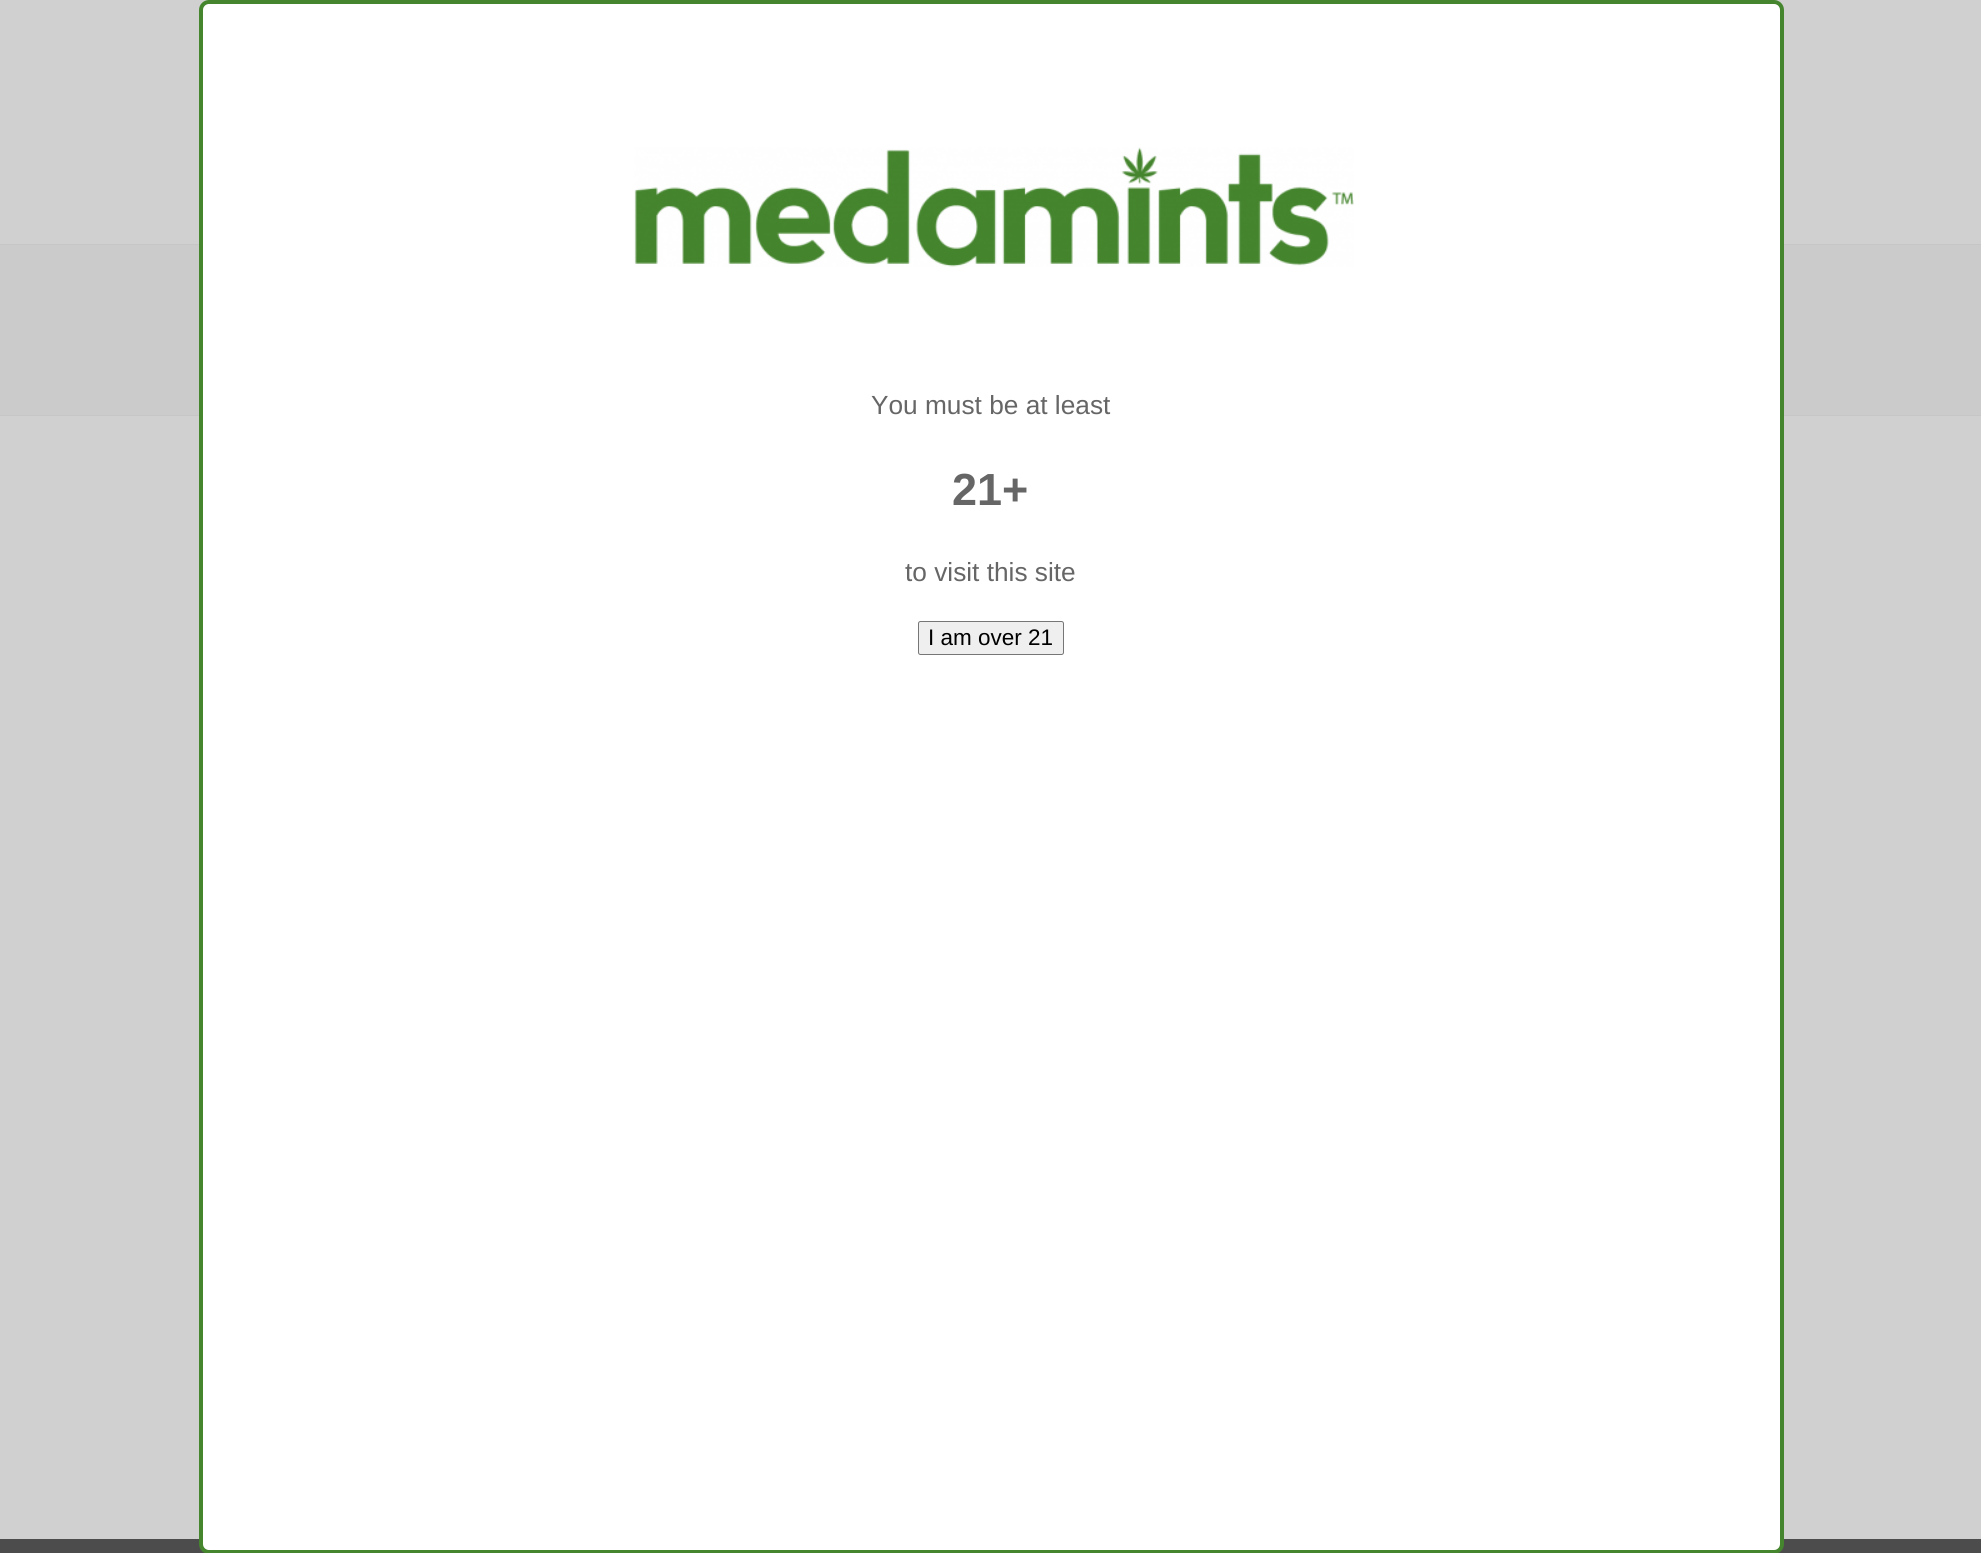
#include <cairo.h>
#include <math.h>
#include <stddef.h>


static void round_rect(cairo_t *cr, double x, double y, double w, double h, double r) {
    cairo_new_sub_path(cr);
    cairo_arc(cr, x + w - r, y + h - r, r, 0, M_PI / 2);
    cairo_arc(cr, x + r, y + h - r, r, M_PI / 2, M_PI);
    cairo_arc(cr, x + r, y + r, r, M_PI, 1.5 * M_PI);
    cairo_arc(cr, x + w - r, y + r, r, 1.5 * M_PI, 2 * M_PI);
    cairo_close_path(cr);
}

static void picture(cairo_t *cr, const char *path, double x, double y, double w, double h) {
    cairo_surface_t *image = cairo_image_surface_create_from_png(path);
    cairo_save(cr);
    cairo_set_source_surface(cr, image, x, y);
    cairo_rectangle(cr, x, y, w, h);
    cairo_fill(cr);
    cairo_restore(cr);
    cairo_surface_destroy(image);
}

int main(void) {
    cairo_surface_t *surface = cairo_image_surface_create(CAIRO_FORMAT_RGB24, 1981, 1553);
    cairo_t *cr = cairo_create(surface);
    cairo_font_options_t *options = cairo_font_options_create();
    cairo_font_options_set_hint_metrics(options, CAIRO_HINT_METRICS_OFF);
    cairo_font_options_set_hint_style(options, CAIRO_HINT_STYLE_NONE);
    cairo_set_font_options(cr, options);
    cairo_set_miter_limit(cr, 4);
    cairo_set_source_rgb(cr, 0.816, 0.816, 0.816);
    cairo_paint(cr);
    cairo_set_source_rgb(cr, 0.796, 0.796, 0.796);
    cairo_rectangle(cr, 0, 245, 1981, 170);
    cairo_fill(cr);
    cairo_set_source_rgb(cr, 0.776, 0.776, 0.776);
    cairo_rectangle(cr, 0, 244, 1981, 1);
    cairo_fill(cr);
    cairo_rectangle(cr, 0, 415, 1981, 1);
    cairo_fill(cr);
    cairo_set_source_rgb(cr, 0.298, 0.298, 0.298);
    cairo_rectangle(cr, 0, 1539, 1981, 14);
    cairo_fill(cr);
    cairo_set_source_rgb(cr, 1, 1, 1);
    round_rect(cr, 201, 2, 1581, 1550, 8);
    cairo_fill_preserve(cr);
    cairo_set_source_rgb(cr, 0.271, 0.522, 0.18);
    cairo_set_line_width(cr, 4);
    cairo_stroke(cr);
    picture(cr, "img1.png", 634, 147, 720, 120);
    cairo_select_font_face(cr, "Liberation Sans", CAIRO_FONT_SLANT_NORMAL, CAIRO_FONT_WEIGHT_NORMAL);
    cairo_set_font_size(cr, 26.25);
    cairo_set_source_rgb(cr, 0.4, 0.4, 0.4);
    cairo_move_to(cr, 871, 414);
    cairo_show_text(cr, "You must be at least");
    cairo_select_font_face(cr, "Liberation Sans", CAIRO_FONT_SLANT_NORMAL, CAIRO_FONT_WEIGHT_BOLD);
    cairo_set_font_size(cr, 45);
    cairo_move_to(cr, 952, 505);
    cairo_show_text(cr, "21+");
    cairo_select_font_face(cr, "Liberation Sans", CAIRO_FONT_SLANT_NORMAL, CAIRO_FONT_WEIGHT_NORMAL);
    cairo_set_font_size(cr, 26.25);
    cairo_move_to(cr, 905, 581);
    cairo_show_text(cr, "to visit this site");
    cairo_set_source_rgb(cr, 0.937, 0.937, 0.937);
    round_rect(cr, 918.5, 621.5, 145, 33, 2);
    cairo_fill_preserve(cr);
    cairo_set_source_rgb(cr, 0.463, 0.463, 0.463);
    cairo_set_line_width(cr, 1);
    cairo_stroke(cr);
    cairo_set_font_size(cr, 22.5);
    cairo_set_source_rgb(cr, 0, 0, 0);
    cairo_move_to(cr, 928, 645);
    cairo_show_text(cr, "I am over 21");
    cairo_surface_write_to_png(surface, "page.png");
    cairo_font_options_destroy(options);
    cairo_destroy(cr);
    cairo_surface_destroy(surface);
    return 0;
}
